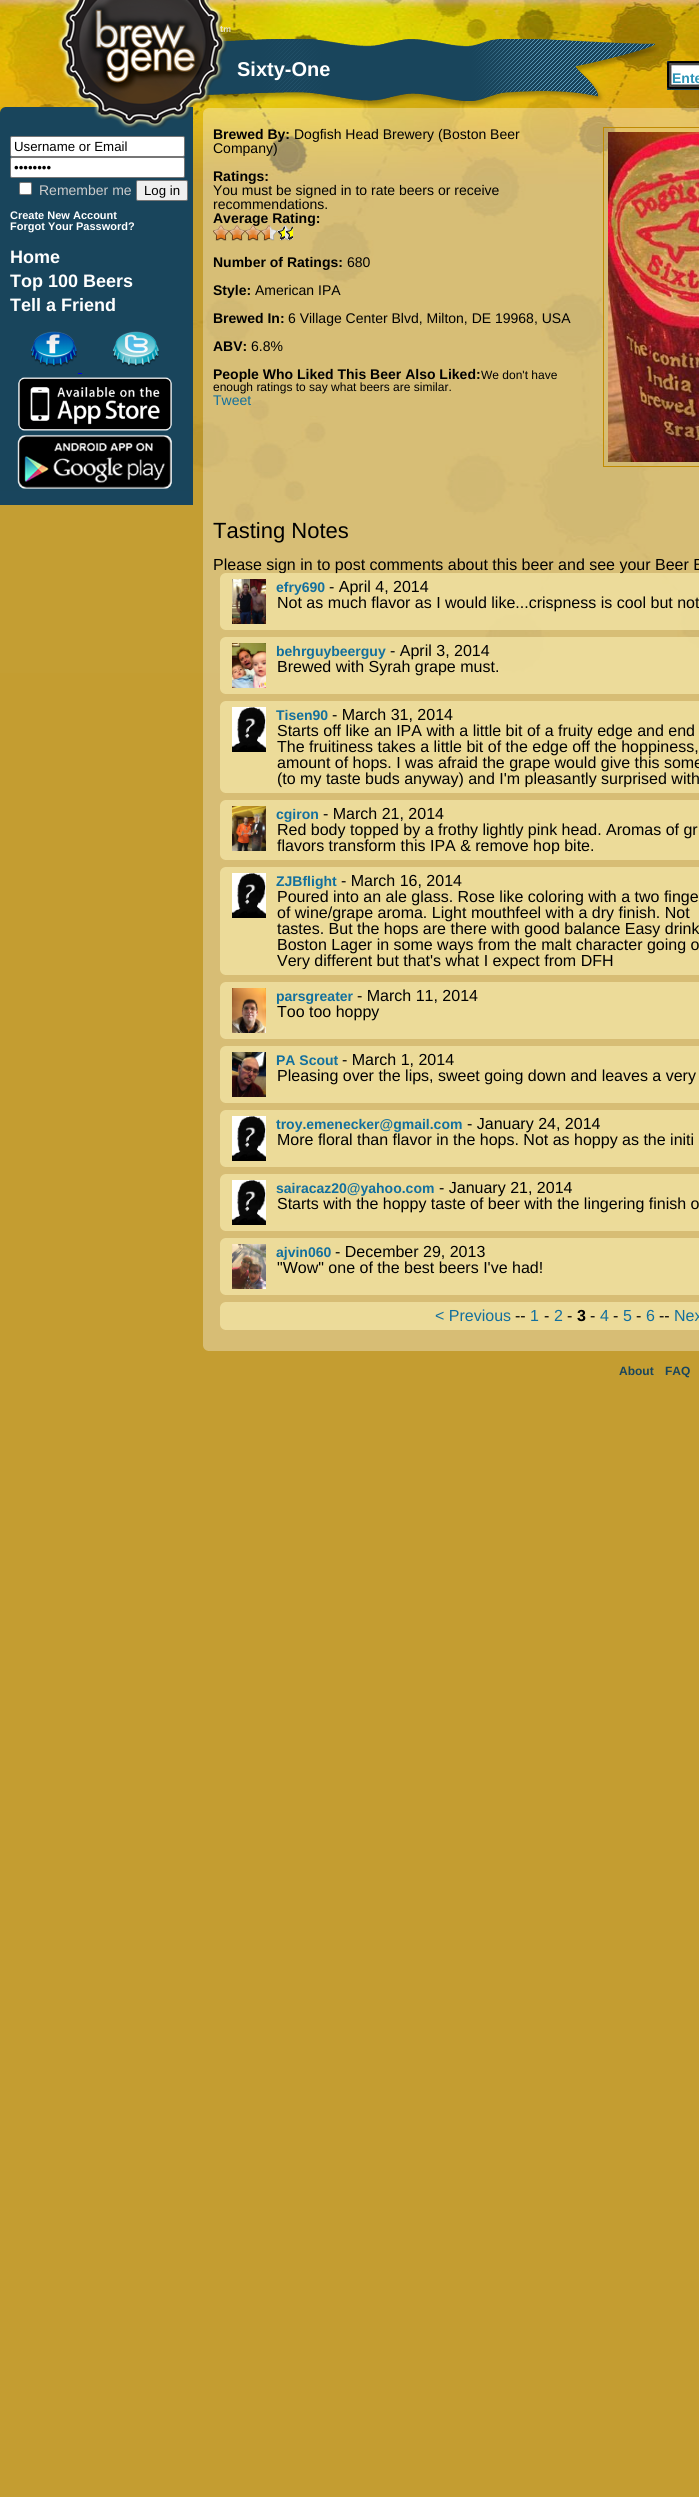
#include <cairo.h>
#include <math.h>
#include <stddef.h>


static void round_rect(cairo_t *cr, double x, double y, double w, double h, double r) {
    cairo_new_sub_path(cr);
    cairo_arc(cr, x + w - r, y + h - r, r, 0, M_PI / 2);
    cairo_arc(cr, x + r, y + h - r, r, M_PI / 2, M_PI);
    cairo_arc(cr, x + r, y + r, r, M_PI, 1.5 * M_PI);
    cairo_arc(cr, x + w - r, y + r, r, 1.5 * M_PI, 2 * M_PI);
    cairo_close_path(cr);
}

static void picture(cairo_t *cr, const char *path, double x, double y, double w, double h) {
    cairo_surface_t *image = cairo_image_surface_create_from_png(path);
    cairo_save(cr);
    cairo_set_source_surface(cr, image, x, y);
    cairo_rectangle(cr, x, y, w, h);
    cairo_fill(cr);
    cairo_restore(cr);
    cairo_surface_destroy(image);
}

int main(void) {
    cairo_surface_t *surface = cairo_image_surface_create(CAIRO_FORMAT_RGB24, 699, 2497);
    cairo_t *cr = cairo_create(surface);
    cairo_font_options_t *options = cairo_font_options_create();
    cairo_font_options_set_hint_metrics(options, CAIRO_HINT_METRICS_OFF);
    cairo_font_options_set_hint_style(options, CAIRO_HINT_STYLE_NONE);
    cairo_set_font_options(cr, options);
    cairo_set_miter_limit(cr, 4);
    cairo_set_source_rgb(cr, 0.769, 0.616, 0.192);
    cairo_paint(cr);
    picture(cr, "img1.png", 0, 0, 699, 673);
    picture(cr, "img2.png", 58, 0, 601, 107);
    cairo_select_font_face(cr, "Liberation Sans", CAIRO_FONT_SLANT_NORMAL, CAIRO_FONT_WEIGHT_BOLD);
    cairo_set_font_size(cr, 20);
    cairo_set_source_rgb(cr, 1, 1, 1);
    cairo_move_to(cr, 237, 76);
    cairo_show_text(cr, "Sixty-One");
    picture(cr, "img3.png", 667, 61, 32, 29);
    cairo_set_font_size(cr, 14);
    cairo_set_source_rgb(cr, 0.173, 0.576, 0.71);
    cairo_move_to(cr, 672, 83);
    cairo_show_text(cr, "Ente");
    picture(cr, "img4.png", 0, 107, 193, 384);
    cairo_set_source_rgb(cr, 1, 1, 1);
    round_rect(cr, 10.5, 136.5, 174, 20, 1.5);
    cairo_fill_preserve(cr);
    cairo_set_source_rgb(cr, 0.463, 0.463, 0.463);
    cairo_set_line_width(cr, 1);
    cairo_stroke(cr);
    cairo_select_font_face(cr, "Liberation Sans", CAIRO_FONT_SLANT_NORMAL, CAIRO_FONT_WEIGHT_NORMAL);
    cairo_set_font_size(cr, 13.25);
    cairo_set_source_rgb(cr, 0, 0, 0);
    cairo_move_to(cr, 14, 151);
    cairo_show_text(cr, "Username or Email");
    cairo_set_source_rgb(cr, 1, 1, 1);
    round_rect(cr, 10.5, 157.5, 174, 20, 1.5);
    cairo_fill_preserve(cr);
    cairo_set_source_rgb(cr, 0.463, 0.463, 0.463);
    cairo_stroke(cr);
    cairo_set_source_rgb(cr, 0, 0, 0);
    cairo_move_to(cr, 14, 172);
    cairo_show_text(cr, "••••••••");
    cairo_set_source_rgb(cr, 1, 1, 1);
    round_rect(cr, 19.5, 182.5, 12, 12, 1.5);
    cairo_fill_preserve(cr);
    cairo_set_source_rgb(cr, 0.463, 0.463, 0.463);
    cairo_stroke(cr);
    cairo_set_font_size(cr, 14);
    cairo_set_source_rgb(cr, 0.8, 0.8, 0.8);
    cairo_move_to(cr, 39, 195);
    cairo_show_text(cr, "Remember me");
    cairo_set_source_rgb(cr, 0.937, 0.937, 0.937);
    round_rect(cr, 136.5, 180.5, 51, 20, 1.5);
    cairo_fill_preserve(cr);
    cairo_set_source_rgb(cr, 0.463, 0.463, 0.463);
    cairo_stroke(cr);
    cairo_set_font_size(cr, 13.25);
    cairo_set_source_rgb(cr, 0, 0, 0);
    cairo_move_to(cr, 144, 195);
    cairo_show_text(cr, "Log in");
    cairo_select_font_face(cr, "Liberation Sans", CAIRO_FONT_SLANT_NORMAL, CAIRO_FONT_WEIGHT_BOLD);
    cairo_set_font_size(cr, 11);
    cairo_set_source_rgb(cr, 1, 1, 1);
    cairo_move_to(cr, 10, 219);
    cairo_show_text(cr, "Create New Account");
    cairo_move_to(cr, 10, 230);
    cairo_show_text(cr, "Forgot Your Password?");
    cairo_set_font_size(cr, 18);
    cairo_move_to(cr, 10, 263);
    cairo_show_text(cr, "Home");
    cairo_move_to(cr, 10, 287);
    cairo_show_text(cr, "Top 100 Beers");
    cairo_move_to(cr, 10, 311);
    cairo_show_text(cr, "Tell a Friend");
    picture(cr, "img5.png", 31, 331, 46, 36);
    picture(cr, "img6.png", 112, 331, 47, 36);
    cairo_set_source_rgb(cr, 0, 0, 0.933);
    cairo_rectangle(cr, 78, 373, 4, 1);
    cairo_fill(cr);
    picture(cr, "img7.png", 18, 377, 154, 54);
    picture(cr, "img8.png", 17, 435, 155, 54);
    cairo_set_source_rgb(cr, 0.098, 0.271, 0.365);
    cairo_rectangle(cr, 0, 491, 193, 14);
    cairo_fill(cr);
    picture(cr, "img9.png", 203, 108, 496, 9);
    cairo_set_source_rgba(cr, 1, 1, 1, 0.33);
    cairo_rectangle(cr, 203, 117, 496, 1220);
    cairo_fill(cr);
    cairo_set_font_size(cr, 14);
    cairo_set_source_rgb(cr, 0, 0, 0);
    cairo_move_to(cr, 213, 139);
    cairo_show_text(cr, "Brewed By:");
    cairo_select_font_face(cr, "Liberation Sans", CAIRO_FONT_SLANT_NORMAL, CAIRO_FONT_WEIGHT_NORMAL);
    cairo_move_to(cr, 294, 139);
    cairo_show_text(cr, "Dogfish Head Brewery (Boston Beer");
    cairo_move_to(cr, 213, 153);
    cairo_show_text(cr, "Company)");
    cairo_select_font_face(cr, "Liberation Sans", CAIRO_FONT_SLANT_NORMAL, CAIRO_FONT_WEIGHT_BOLD);
    cairo_move_to(cr, 213, 181);
    cairo_show_text(cr, "Ratings:");
    cairo_select_font_face(cr, "Liberation Sans", CAIRO_FONT_SLANT_NORMAL, CAIRO_FONT_WEIGHT_NORMAL);
    cairo_move_to(cr, 213, 195);
    cairo_show_text(cr, "You must be signed in to rate beers or receive");
    cairo_move_to(cr, 213, 209);
    cairo_show_text(cr, "recommendations.");
    cairo_select_font_face(cr, "Liberation Sans", CAIRO_FONT_SLANT_NORMAL, CAIRO_FONT_WEIGHT_BOLD);
    cairo_move_to(cr, 213, 223);
    cairo_show_text(cr, "Average Rating:");
    picture(cr, "img10.png", 213, 225, 8, 16);
    picture(cr, "img11.png", 213, 225, 8, 16);
    picture(cr, "img12.png", 221, 225, 8, 16);
    picture(cr, "img13.png", 221, 225, 8, 16);
    picture(cr, "img10.png", 229, 225, 8, 16);
    picture(cr, "img11.png", 229, 225, 8, 16);
    picture(cr, "img12.png", 237, 225, 8, 16);
    picture(cr, "img13.png", 237, 225, 8, 16);
    picture(cr, "img10.png", 245, 225, 8, 16);
    picture(cr, "img11.png", 245, 225, 8, 16);
    picture(cr, "img14.png", 253, 225, 8, 16);
    picture(cr, "img15.png", 253, 225, 8, 16);
    picture(cr, "img10.png", 261, 225, 8, 16);
    picture(cr, "img11.png", 261, 225, 8, 16);
    picture(cr, "img12.png", 269, 225, 8, 16);
    picture(cr, "img16.png", 269, 225, 1, 14);
    picture(cr, "img10.png", 277, 225, 8, 16);
    picture(cr, "img17.png", 277, 226, 8, 14);
    picture(cr, "img18.png", 285, 225, 5, 16);
    picture(cr, "img19.png", 286, 226, 7, 14);
    cairo_move_to(cr, 213, 267);
    cairo_show_text(cr, "Number of Ratings:");
    cairo_select_font_face(cr, "Liberation Sans", CAIRO_FONT_SLANT_NORMAL, CAIRO_FONT_WEIGHT_NORMAL);
    cairo_move_to(cr, 347, 267);
    cairo_show_text(cr, "680");
    cairo_select_font_face(cr, "Liberation Sans", CAIRO_FONT_SLANT_NORMAL, CAIRO_FONT_WEIGHT_BOLD);
    cairo_move_to(cr, 213, 295);
    cairo_show_text(cr, "Style:");
    cairo_select_font_face(cr, "Liberation Sans", CAIRO_FONT_SLANT_NORMAL, CAIRO_FONT_WEIGHT_NORMAL);
    cairo_move_to(cr, 255, 295);
    cairo_show_text(cr, "American IPA");
    cairo_select_font_face(cr, "Liberation Sans", CAIRO_FONT_SLANT_NORMAL, CAIRO_FONT_WEIGHT_BOLD);
    cairo_move_to(cr, 213, 323);
    cairo_show_text(cr, "Brewed In:");
    cairo_select_font_face(cr, "Liberation Sans", CAIRO_FONT_SLANT_NORMAL, CAIRO_FONT_WEIGHT_NORMAL);
    cairo_move_to(cr, 288, 323);
    cairo_show_text(cr, "6 Village Center Blvd, Milton, DE 19968, USA");
    cairo_select_font_face(cr, "Liberation Sans", CAIRO_FONT_SLANT_NORMAL, CAIRO_FONT_WEIGHT_BOLD);
    cairo_move_to(cr, 213, 351);
    cairo_show_text(cr, "ABV:");
    cairo_select_font_face(cr, "Liberation Sans", CAIRO_FONT_SLANT_NORMAL, CAIRO_FONT_WEIGHT_NORMAL);
    cairo_move_to(cr, 251, 351);
    cairo_show_text(cr, "6.8%");
    cairo_select_font_face(cr, "Liberation Sans", CAIRO_FONT_SLANT_NORMAL, CAIRO_FONT_WEIGHT_BOLD);
    cairo_move_to(cr, 213, 379);
    cairo_show_text(cr, "People Who Liked This Beer Also Liked:");
    cairo_select_font_face(cr, "Liberation Sans", CAIRO_FONT_SLANT_NORMAL, CAIRO_FONT_WEIGHT_NORMAL);
    cairo_set_font_size(cr, 12);
    cairo_move_to(cr, 481, 379);
    cairo_show_text(cr, "We don't have");
    cairo_move_to(cr, 213, 391);
    cairo_show_text(cr, "enough ratings to say what beers are similar.");
    cairo_set_font_size(cr, 14);
    cairo_set_source_rgb(cr, 0.071, 0.435, 0.616);
    cairo_move_to(cr, 213, 405);
    cairo_show_text(cr, "Tweet");
    cairo_rectangle(cr, 603.5, 127.5, 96, 339);
    cairo_set_source_rgb(cr, 0.753, 0.541, 0.008);
    cairo_stroke(cr);
    picture(cr, "img20.png", 608, 132, 91, 330);
    cairo_set_font_size(cr, 22);
    cairo_set_source_rgb(cr, 0, 0, 0);
    cairo_move_to(cr, 213, 538);
    cairo_show_text(cr, "Tasting Notes");
    cairo_set_font_size(cr, 16);
    cairo_move_to(cr, 213, 570);
    cairo_show_text(cr, "Please sign in to post comments about this beer and see your Beer B");
    picture(cr, "img21.png", 220, 573, 479, 6);
    cairo_set_source_rgba(cr, 0.957, 0.902, 0.655, 0.73);
    cairo_rectangle(cr, 220, 579, 479, 45);
    cairo_fill(cr);
    picture(cr, "img22.png", 232, 579, 34, 45);
    cairo_select_font_face(cr, "Liberation Sans", CAIRO_FONT_SLANT_NORMAL, CAIRO_FONT_WEIGHT_BOLD);
    cairo_set_font_size(cr, 14);
    cairo_set_source_rgb(cr, 0.071, 0.435, 0.616);
    cairo_move_to(cr, 276, 592);
    cairo_show_text(cr, "efry690");
    cairo_select_font_face(cr, "Liberation Sans", CAIRO_FONT_SLANT_NORMAL, CAIRO_FONT_WEIGHT_NORMAL);
    cairo_set_font_size(cr, 16);
    cairo_set_source_rgb(cr, 0, 0, 0);
    cairo_move_to(cr, 329, 592);
    cairo_show_text(cr, "- April 4, 2014");
    cairo_move_to(cr, 277, 608);
    cairo_show_text(cr, "Not as much flavor as I would like...crispness is cool but not");
    picture(cr, "img23.png", 220, 624, 479, 6);
    picture(cr, "img24.png", 220, 637, 479, 6);
    cairo_set_source_rgba(cr, 0.957, 0.902, 0.655, 0.73);
    cairo_rectangle(cr, 220, 643, 479, 45);
    cairo_fill(cr);
    picture(cr, "img25.png", 232, 643, 34, 45);
    cairo_select_font_face(cr, "Liberation Sans", CAIRO_FONT_SLANT_NORMAL, CAIRO_FONT_WEIGHT_BOLD);
    cairo_set_font_size(cr, 14);
    cairo_set_source_rgb(cr, 0.071, 0.435, 0.616);
    cairo_move_to(cr, 276, 656);
    cairo_show_text(cr, "behrguybeerguy");
    cairo_select_font_face(cr, "Liberation Sans", CAIRO_FONT_SLANT_NORMAL, CAIRO_FONT_WEIGHT_NORMAL);
    cairo_set_font_size(cr, 16);
    cairo_set_source_rgb(cr, 0, 0, 0);
    cairo_move_to(cr, 390, 656);
    cairo_show_text(cr, "- April 3, 2014");
    cairo_move_to(cr, 277, 672);
    cairo_show_text(cr, "Brewed with Syrah grape must.");
    picture(cr, "img26.png", 220, 688, 479, 6);
    picture(cr, "img27.png", 220, 701, 479, 6);
    cairo_set_source_rgb(cr, 0.925, 0.859, 0.6);
    cairo_rectangle(cr, 220, 707, 479, 80);
    cairo_fill(cr);
    picture(cr, "img28.png", 232, 707, 34, 45);
    cairo_select_font_face(cr, "Liberation Sans", CAIRO_FONT_SLANT_NORMAL, CAIRO_FONT_WEIGHT_BOLD);
    cairo_set_font_size(cr, 14);
    cairo_set_source_rgb(cr, 0.071, 0.435, 0.616);
    cairo_move_to(cr, 276, 720);
    cairo_show_text(cr, "Tisen90");
    cairo_select_font_face(cr, "Liberation Sans", CAIRO_FONT_SLANT_NORMAL, CAIRO_FONT_WEIGHT_NORMAL);
    cairo_set_font_size(cr, 16);
    cairo_set_source_rgb(cr, 0, 0, 0);
    cairo_move_to(cr, 332, 720);
    cairo_show_text(cr, "- March 31, 2014");
    cairo_move_to(cr, 277, 736);
    cairo_show_text(cr, "Starts off like an IPA with a little bit of a fruity edge and end");
    cairo_move_to(cr, 277, 752);
    cairo_show_text(cr, "The fruitiness takes a little bit of the edge off the hoppiness,");
    cairo_move_to(cr, 277, 768);
    cairo_show_text(cr, "amount of hops. I was afraid the grape would give this some");
    cairo_move_to(cr, 277, 784);
    cairo_show_text(cr, "(to my taste buds anyway) and I'm pleasantly surprised with");
    picture(cr, "img29.png", 220, 787, 479, 6);
    picture(cr, "img27.png", 220, 800, 479, 6);
    cairo_set_source_rgb(cr, 0.925, 0.859, 0.6);
    cairo_rectangle(cr, 220, 806, 479, 48);
    cairo_fill(cr);
    picture(cr, "img30.png", 232, 806, 34, 45);
    cairo_select_font_face(cr, "Liberation Sans", CAIRO_FONT_SLANT_NORMAL, CAIRO_FONT_WEIGHT_BOLD);
    cairo_set_font_size(cr, 14);
    cairo_set_source_rgb(cr, 0.071, 0.435, 0.616);
    cairo_move_to(cr, 276, 819);
    cairo_show_text(cr, "cgiron");
    cairo_select_font_face(cr, "Liberation Sans", CAIRO_FONT_SLANT_NORMAL, CAIRO_FONT_WEIGHT_NORMAL);
    cairo_set_font_size(cr, 16);
    cairo_set_source_rgb(cr, 0, 0, 0);
    cairo_move_to(cr, 323, 819);
    cairo_show_text(cr, "- March 21, 2014");
    cairo_move_to(cr, 277, 835);
    cairo_show_text(cr, "Red body topped by a frothy lightly pink head. Aromas of gr");
    cairo_move_to(cr, 277, 851);
    cairo_show_text(cr, "flavors transform this IPA & remove hop bite.");
    picture(cr, "img31.png", 220, 854, 479, 6);
    picture(cr, "img27.png", 220, 867, 479, 6);
    cairo_set_source_rgb(cr, 0.925, 0.859, 0.6);
    cairo_rectangle(cr, 220, 873, 479, 96);
    cairo_fill(cr);
    picture(cr, "img28.png", 232, 873, 34, 45);
    cairo_select_font_face(cr, "Liberation Sans", CAIRO_FONT_SLANT_NORMAL, CAIRO_FONT_WEIGHT_BOLD);
    cairo_set_font_size(cr, 14);
    cairo_set_source_rgb(cr, 0.071, 0.435, 0.616);
    cairo_move_to(cr, 276, 886);
    cairo_show_text(cr, "ZJBflight");
    cairo_select_font_face(cr, "Liberation Sans", CAIRO_FONT_SLANT_NORMAL, CAIRO_FONT_WEIGHT_NORMAL);
    cairo_set_font_size(cr, 16);
    cairo_set_source_rgb(cr, 0, 0, 0);
    cairo_move_to(cr, 341, 886);
    cairo_show_text(cr, "- March 16, 2014");
    cairo_move_to(cr, 277, 902);
    cairo_show_text(cr, "Poured into an ale glass. Rose like coloring with a two finge");
    cairo_move_to(cr, 277, 918);
    cairo_show_text(cr, "of wine/grape aroma. Light mouthfeel with a dry finish. Not");
    cairo_move_to(cr, 277, 934);
    cairo_show_text(cr, "tastes. But the hops are there with good balance Easy drink");
    cairo_move_to(cr, 277, 950);
    cairo_show_text(cr, "Boston Lager in some ways from the malt character going o");
    cairo_move_to(cr, 277, 966);
    cairo_show_text(cr, "Very different but that's what I expect from DFH");
    picture(cr, "img32.png", 220, 969, 479, 6);
    picture(cr, "img27.png", 220, 982, 479, 6);
    cairo_set_source_rgb(cr, 0.925, 0.859, 0.6);
    cairo_rectangle(cr, 220, 988, 479, 45);
    cairo_fill(cr);
    picture(cr, "img33.png", 232, 988, 34, 45);
    cairo_select_font_face(cr, "Liberation Sans", CAIRO_FONT_SLANT_NORMAL, CAIRO_FONT_WEIGHT_BOLD);
    cairo_set_font_size(cr, 14);
    cairo_set_source_rgb(cr, 0.071, 0.435, 0.616);
    cairo_move_to(cr, 276, 1001);
    cairo_show_text(cr, "parsgreater");
    cairo_select_font_face(cr, "Liberation Sans", CAIRO_FONT_SLANT_NORMAL, CAIRO_FONT_WEIGHT_NORMAL);
    cairo_set_font_size(cr, 16);
    cairo_set_source_rgb(cr, 0, 0, 0);
    cairo_move_to(cr, 357, 1001);
    cairo_show_text(cr, "- March 11, 2014");
    cairo_move_to(cr, 277, 1017);
    cairo_show_text(cr, "Too too hoppy");
    picture(cr, "img26.png", 220, 1033, 479, 6);
    picture(cr, "img27.png", 220, 1046, 479, 6);
    cairo_set_source_rgb(cr, 0.925, 0.859, 0.6);
    cairo_rectangle(cr, 220, 1052, 479, 45);
    cairo_fill(cr);
    picture(cr, "img34.png", 232, 1052, 34, 45);
    cairo_select_font_face(cr, "Liberation Sans", CAIRO_FONT_SLANT_NORMAL, CAIRO_FONT_WEIGHT_BOLD);
    cairo_set_font_size(cr, 14);
    cairo_set_source_rgb(cr, 0.071, 0.435, 0.616);
    cairo_move_to(cr, 276, 1065);
    cairo_show_text(cr, "PA Scout");
    cairo_select_font_face(cr, "Liberation Sans", CAIRO_FONT_SLANT_NORMAL, CAIRO_FONT_WEIGHT_NORMAL);
    cairo_set_font_size(cr, 16);
    cairo_set_source_rgb(cr, 0, 0, 0);
    cairo_move_to(cr, 342, 1065);
    cairo_show_text(cr, "- March 1, 2014");
    cairo_move_to(cr, 277, 1081);
    cairo_show_text(cr, "Pleasing over the lips, sweet going down and leaves a very");
    picture(cr, "img26.png", 220, 1097, 479, 6);
    picture(cr, "img27.png", 220, 1110, 479, 6);
    cairo_set_source_rgb(cr, 0.925, 0.859, 0.6);
    cairo_rectangle(cr, 220, 1116, 479, 45);
    cairo_fill(cr);
    picture(cr, "img28.png", 232, 1116, 34, 45);
    cairo_select_font_face(cr, "Liberation Sans", CAIRO_FONT_SLANT_NORMAL, CAIRO_FONT_WEIGHT_BOLD);
    cairo_set_font_size(cr, 14);
    cairo_set_source_rgb(cr, 0.071, 0.435, 0.616);
    cairo_move_to(cr, 276, 1129);
    cairo_show_text(cr, "troy.emenecker@gmail.com");
    cairo_select_font_face(cr, "Liberation Sans", CAIRO_FONT_SLANT_NORMAL, CAIRO_FONT_WEIGHT_NORMAL);
    cairo_set_font_size(cr, 16);
    cairo_set_source_rgb(cr, 0, 0, 0);
    cairo_move_to(cr, 467, 1129);
    cairo_show_text(cr, "- January 24, 2014");
    cairo_move_to(cr, 277, 1145);
    cairo_show_text(cr, "More floral than flavor in the hops. Not as hoppy as the initi");
    picture(cr, "img26.png", 220, 1161, 479, 6);
    picture(cr, "img27.png", 220, 1174, 479, 6);
    cairo_set_source_rgb(cr, 0.925, 0.859, 0.6);
    cairo_rectangle(cr, 220, 1180, 479, 45);
    cairo_fill(cr);
    picture(cr, "img28.png", 232, 1180, 34, 45);
    cairo_select_font_face(cr, "Liberation Sans", CAIRO_FONT_SLANT_NORMAL, CAIRO_FONT_WEIGHT_BOLD);
    cairo_set_font_size(cr, 14);
    cairo_set_source_rgb(cr, 0.071, 0.435, 0.616);
    cairo_move_to(cr, 276, 1193);
    cairo_show_text(cr, "sairacaz20@yahoo.com");
    cairo_select_font_face(cr, "Liberation Sans", CAIRO_FONT_SLANT_NORMAL, CAIRO_FONT_WEIGHT_NORMAL);
    cairo_set_font_size(cr, 16);
    cairo_set_source_rgb(cr, 0, 0, 0);
    cairo_move_to(cr, 439, 1193);
    cairo_show_text(cr, "- January 21, 2014");
    cairo_move_to(cr, 277, 1209);
    cairo_show_text(cr, "Starts with the hoppy taste of beer with the lingering finish o");
    picture(cr, "img26.png", 220, 1225, 479, 6);
    picture(cr, "img27.png", 220, 1238, 479, 6);
    cairo_set_source_rgb(cr, 0.925, 0.859, 0.6);
    cairo_rectangle(cr, 220, 1244, 479, 45);
    cairo_fill(cr);
    picture(cr, "img35.png", 232, 1244, 34, 45);
    cairo_select_font_face(cr, "Liberation Sans", CAIRO_FONT_SLANT_NORMAL, CAIRO_FONT_WEIGHT_BOLD);
    cairo_set_font_size(cr, 14);
    cairo_set_source_rgb(cr, 0.071, 0.435, 0.616);
    cairo_move_to(cr, 276, 1257);
    cairo_show_text(cr, "ajvin060");
    cairo_select_font_face(cr, "Liberation Sans", CAIRO_FONT_SLANT_NORMAL, CAIRO_FONT_WEIGHT_NORMAL);
    cairo_set_font_size(cr, 16);
    cairo_set_source_rgb(cr, 0, 0, 0);
    cairo_move_to(cr, 335, 1257);
    cairo_show_text(cr, "- December 29, 2013");
    cairo_move_to(cr, 277, 1273);
    cairo_show_text(cr, "\"Wow\" one of the best beers I've had!");
    picture(cr, "img26.png", 220, 1289, 479, 6);
    picture(cr, "img27.png", 220, 1302, 479, 6);
    cairo_set_source_rgb(cr, 0.925, 0.859, 0.6);
    cairo_rectangle(cr, 220, 1308, 479, 16);
    cairo_fill(cr);
    cairo_set_source_rgb(cr, 0.071, 0.435, 0.616);
    cairo_move_to(cr, 435, 1321);
    cairo_show_text(cr, "< Previous");
    cairo_set_source_rgb(cr, 0, 0, 0);
    cairo_move_to(cr, 515, 1321);
    cairo_show_text(cr, "--");
    cairo_set_source_rgb(cr, 0.071, 0.435, 0.616);
    cairo_move_to(cr, 530, 1321);
    cairo_show_text(cr, "1");
    cairo_set_source_rgb(cr, 0, 0, 0);
    cairo_move_to(cr, 544, 1321);
    cairo_show_text(cr, "-");
    cairo_set_source_rgb(cr, 0.071, 0.435, 0.616);
    cairo_move_to(cr, 554, 1321);
    cairo_show_text(cr, "2");
    cairo_set_source_rgb(cr, 0, 0, 0);
    cairo_move_to(cr, 567, 1321);
    cairo_show_text(cr, "-");
    cairo_select_font_face(cr, "Liberation Sans", CAIRO_FONT_SLANT_NORMAL, CAIRO_FONT_WEIGHT_BOLD);
    cairo_move_to(cr, 577, 1321);
    cairo_show_text(cr, "3");
    cairo_select_font_face(cr, "Liberation Sans", CAIRO_FONT_SLANT_NORMAL, CAIRO_FONT_WEIGHT_NORMAL);
    cairo_move_to(cr, 590, 1321);
    cairo_show_text(cr, "-");
    cairo_set_source_rgb(cr, 0.071, 0.435, 0.616);
    cairo_move_to(cr, 600, 1321);
    cairo_show_text(cr, "4");
    cairo_set_source_rgb(cr, 0, 0, 0);
    cairo_move_to(cr, 613, 1321);
    cairo_show_text(cr, "-");
    cairo_set_source_rgb(cr, 0.071, 0.435, 0.616);
    cairo_move_to(cr, 623, 1321);
    cairo_show_text(cr, "5");
    cairo_set_source_rgb(cr, 0, 0, 0);
    cairo_move_to(cr, 636, 1321);
    cairo_show_text(cr, "-");
    cairo_set_source_rgb(cr, 0.071, 0.435, 0.616);
    cairo_move_to(cr, 646, 1321);
    cairo_show_text(cr, "6");
    cairo_set_source_rgb(cr, 0, 0, 0);
    cairo_move_to(cr, 659, 1321);
    cairo_show_text(cr, "--");
    cairo_set_source_rgb(cr, 0.071, 0.435, 0.616);
    cairo_move_to(cr, 674, 1321);
    cairo_show_text(cr, "Nex");
    picture(cr, "img26.png", 220, 1324, 479, 6);
    picture(cr, "img36.png", 203, 1337, 496, 14);
    cairo_select_font_face(cr, "Liberation Sans", CAIRO_FONT_SLANT_NORMAL, CAIRO_FONT_WEIGHT_BOLD);
    cairo_set_font_size(cr, 12);
    cairo_set_source_rgb(cr, 0.098, 0.271, 0.361);
    cairo_move_to(cr, 619, 1375);
    cairo_show_text(cr, "About");
    cairo_move_to(cr, 665, 1375);
    cairo_show_text(cr, "FAQ");
    cairo_surface_write_to_png(surface, "page.png");
    cairo_font_options_destroy(options);
    cairo_destroy(cr);
    cairo_surface_destroy(surface);
    return 0;
}
